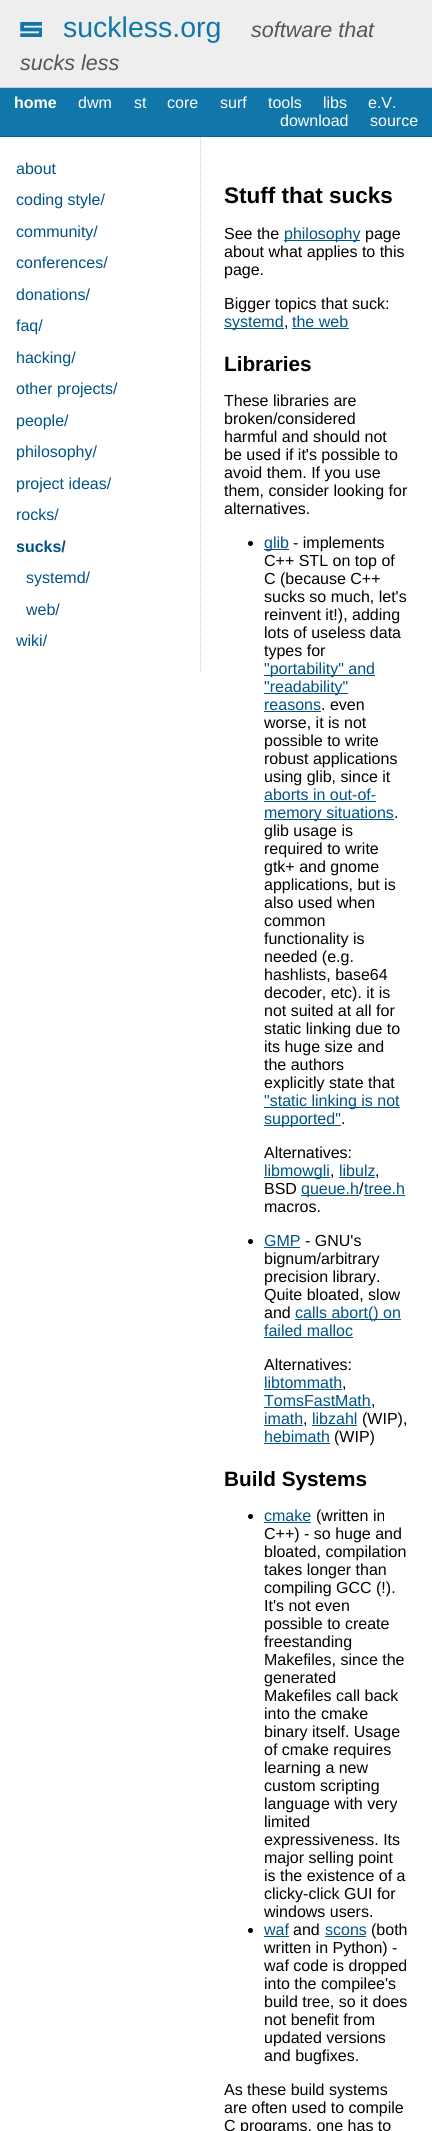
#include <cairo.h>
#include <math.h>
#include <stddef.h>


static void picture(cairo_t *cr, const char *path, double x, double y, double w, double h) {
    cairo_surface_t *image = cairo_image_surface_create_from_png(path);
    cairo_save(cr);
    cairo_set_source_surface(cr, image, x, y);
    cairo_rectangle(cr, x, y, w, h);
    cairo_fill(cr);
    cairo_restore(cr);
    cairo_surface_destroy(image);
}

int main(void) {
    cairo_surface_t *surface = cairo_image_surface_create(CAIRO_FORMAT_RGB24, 432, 2131);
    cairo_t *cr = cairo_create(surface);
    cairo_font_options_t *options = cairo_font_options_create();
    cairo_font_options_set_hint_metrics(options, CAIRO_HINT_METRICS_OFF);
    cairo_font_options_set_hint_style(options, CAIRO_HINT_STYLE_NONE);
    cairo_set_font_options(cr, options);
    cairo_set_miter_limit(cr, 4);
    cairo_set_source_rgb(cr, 1, 1, 1);
    cairo_paint(cr);
    cairo_set_source_rgb(cr, 0.933, 0.933, 0.933);
    cairo_rectangle(cr, 0, 0, 432, 87);
    cairo_fill(cr);
    picture(cr, "img1.png", 20, 22, 22, 15);
    cairo_select_font_face(cr, "Liberation Sans", CAIRO_FONT_SLANT_NORMAL, CAIRO_FONT_WEIGHT_NORMAL);
    cairo_set_font_size(cr, 28.5);
    cairo_set_source_rgb(cr, 0.067, 0.467, 0.667);
    cairo_move_to(cr, 63, 37);
    cairo_show_text(cr, "suckless.org");
    cairo_select_font_face(cr, "Liberation Sans", CAIRO_FONT_SLANT_ITALIC, CAIRO_FONT_WEIGHT_NORMAL);
    cairo_set_font_size(cr, 21.5);
    cairo_set_source_rgb(cr, 0.333, 0.333, 0.333);
    cairo_move_to(cr, 251, 37);
    cairo_show_text(cr, "software that");
    cairo_move_to(cr, 20, 70);
    cairo_show_text(cr, "sucks less");
    cairo_set_source_rgb(cr, 0.067, 0.467, 0.667);
    cairo_rectangle(cr, 0, 88, 432, 48);
    cairo_fill(cr);
    cairo_set_source_rgb(cr, 0.8, 0.8, 0.8);
    cairo_rectangle(cr, 0, 87, 432, 1);
    cairo_fill(cr);
    cairo_set_source_rgb(cr, 0, 0.4, 0.6);
    cairo_rectangle(cr, 0, 136, 432, 1);
    cairo_fill(cr);
    cairo_select_font_face(cr, "Liberation Sans", CAIRO_FONT_SLANT_NORMAL, CAIRO_FONT_WEIGHT_BOLD);
    cairo_set_font_size(cr, 16);
    cairo_set_source_rgb(cr, 1, 1, 1);
    cairo_move_to(cr, 14, 108);
    cairo_show_text(cr, "home");
    cairo_select_font_face(cr, "Liberation Sans", CAIRO_FONT_SLANT_NORMAL, CAIRO_FONT_WEIGHT_NORMAL);
    cairo_move_to(cr, 78, 108);
    cairo_show_text(cr, "dwm");
    cairo_move_to(cr, 134, 108);
    cairo_show_text(cr, "st");
    cairo_move_to(cr, 167, 108);
    cairo_show_text(cr, "core");
    cairo_move_to(cr, 220, 108);
    cairo_show_text(cr, "surf");
    cairo_move_to(cr, 268, 108);
    cairo_show_text(cr, "tools");
    cairo_move_to(cr, 323, 108);
    cairo_show_text(cr, "libs");
    cairo_move_to(cr, 368, 108);
    cairo_show_text(cr, "e.V.");
    cairo_move_to(cr, 280, 126);
    cairo_show_text(cr, "download");
    cairo_move_to(cr, 370, 126);
    cairo_show_text(cr, "source");
    cairo_new_path(cr);
    cairo_move_to(cr, 200.5, 137);
    cairo_line_to(cr, 200.5, 673);
    cairo_set_source_rgb(cr, 0.8, 0.8, 0.8);
    cairo_set_line_width(cr, 1);
    cairo_set_dash(cr, (double[]){1, 1}, 2, 0);
    cairo_stroke(cr);
    cairo_set_source_rgb(cr, 0, 0.325, 0.525);
    cairo_move_to(cr, 16, 174);
    cairo_show_text(cr, "about");
    cairo_move_to(cr, 16, 205);
    cairo_show_text(cr, "coding style/");
    cairo_move_to(cr, 16, 237);
    cairo_show_text(cr, "community/");
    cairo_move_to(cr, 16, 268);
    cairo_show_text(cr, "conferences/");
    cairo_move_to(cr, 16, 300);
    cairo_show_text(cr, "donations/");
    cairo_move_to(cr, 16, 331);
    cairo_show_text(cr, "faq/");
    cairo_move_to(cr, 16, 363);
    cairo_show_text(cr, "hacking/");
    cairo_move_to(cr, 16, 394);
    cairo_show_text(cr, "other projects/");
    cairo_move_to(cr, 16, 426);
    cairo_show_text(cr, "people/");
    cairo_move_to(cr, 16, 457);
    cairo_show_text(cr, "philosophy/");
    cairo_move_to(cr, 16, 489);
    cairo_show_text(cr, "project ideas/");
    cairo_move_to(cr, 16, 520);
    cairo_show_text(cr, "rocks/");
    cairo_select_font_face(cr, "Liberation Sans", CAIRO_FONT_SLANT_NORMAL, CAIRO_FONT_WEIGHT_BOLD);
    cairo_move_to(cr, 16, 552);
    cairo_show_text(cr, "sucks/");
    cairo_select_font_face(cr, "Liberation Sans", CAIRO_FONT_SLANT_NORMAL, CAIRO_FONT_WEIGHT_NORMAL);
    cairo_move_to(cr, 26, 583);
    cairo_show_text(cr, "systemd/");
    cairo_move_to(cr, 26, 615);
    cairo_show_text(cr, "web/");
    cairo_move_to(cr, 16, 646);
    cairo_show_text(cr, "wiki/");
    cairo_select_font_face(cr, "Liberation Sans", CAIRO_FONT_SLANT_NORMAL, CAIRO_FONT_WEIGHT_BOLD);
    cairo_set_font_size(cr, 22.5);
    cairo_set_source_rgb(cr, 0, 0, 0);
    cairo_move_to(cr, 224, 203);
    cairo_show_text(cr, "Stuff that sucks");
    cairo_select_font_face(cr, "Liberation Sans", CAIRO_FONT_SLANT_NORMAL, CAIRO_FONT_WEIGHT_NORMAL);
    cairo_set_font_size(cr, 16);
    cairo_move_to(cr, 224, 239);
    cairo_show_text(cr, "See the");
    cairo_set_source_rgb(cr, 0, 0.325, 0.525);
    cairo_rectangle(cr, 284, 240, 76, 1);
    cairo_fill(cr);
    cairo_move_to(cr, 284, 239);
    cairo_show_text(cr, "philosophy");
    cairo_set_source_rgb(cr, 0, 0, 0);
    cairo_move_to(cr, 365, 239);
    cairo_show_text(cr, "page");
    cairo_move_to(cr, 224, 257);
    cairo_show_text(cr, "about what applies to this");
    cairo_move_to(cr, 224, 275);
    cairo_show_text(cr, "page.");
    cairo_move_to(cr, 224, 309);
    cairo_show_text(cr, "Bigger topics that suck:");
    cairo_set_source_rgb(cr, 0, 0.325, 0.525);
    cairo_rectangle(cr, 224, 328, 60, 1);
    cairo_fill(cr);
    cairo_move_to(cr, 224, 327);
    cairo_show_text(cr, "systemd");
    cairo_set_source_rgb(cr, 0, 0, 0);
    cairo_move_to(cr, 284, 327);
    cairo_show_text(cr, ",");
    cairo_set_source_rgb(cr, 0, 0.325, 0.525);
    cairo_move_to(cr, 292, 327);
    cairo_show_text(cr, "the web");
    cairo_rectangle(cr, 292, 328, 57, 1);
    cairo_fill(cr);
    cairo_select_font_face(cr, "Liberation Sans", CAIRO_FONT_SLANT_NORMAL, CAIRO_FONT_WEIGHT_BOLD);
    cairo_set_font_size(cr, 20.75);
    cairo_set_source_rgb(cr, 0, 0, 0);
    cairo_move_to(cr, 224, 371);
    cairo_show_text(cr, "Libraries");
    cairo_select_font_face(cr, "Liberation Sans", CAIRO_FONT_SLANT_NORMAL, CAIRO_FONT_WEIGHT_NORMAL);
    cairo_set_font_size(cr, 16);
    cairo_move_to(cr, 224, 406);
    cairo_show_text(cr, "These libraries are");
    cairo_move_to(cr, 224, 424);
    cairo_show_text(cr, "broken/considered");
    cairo_move_to(cr, 224, 442);
    cairo_show_text(cr, "harmful and should not");
    cairo_move_to(cr, 224, 460);
    cairo_show_text(cr, "be used if it's possible to");
    cairo_move_to(cr, 224, 478);
    cairo_show_text(cr, "avoid them. If you use");
    cairo_move_to(cr, 224, 496);
    cairo_show_text(cr, "them, consider looking for");
    cairo_move_to(cr, 224, 514);
    cairo_show_text(cr, "alternatives.");
    cairo_new_path(cr);
    cairo_arc(cr, 250.5, 543.5, 2.5, 0, 2 * M_PI);
    cairo_fill(cr);
    cairo_set_source_rgb(cr, 0, 0.325, 0.525);
    cairo_rectangle(cr, 264, 549, 25, 1);
    cairo_fill(cr);
    cairo_move_to(cr, 264, 548);
    cairo_show_text(cr, "glib");
    cairo_set_source_rgb(cr, 0, 0, 0);
    cairo_move_to(cr, 293, 548);
    cairo_show_text(cr, "- implements");
    cairo_move_to(cr, 264, 566);
    cairo_show_text(cr, "C++ STL on top of");
    cairo_move_to(cr, 264, 584);
    cairo_show_text(cr, "C (because C++");
    cairo_move_to(cr, 264, 602);
    cairo_show_text(cr, "sucks so much, let's");
    cairo_move_to(cr, 264, 620);
    cairo_show_text(cr, "reinvent it!), adding");
    cairo_move_to(cr, 264, 638);
    cairo_show_text(cr, "lots of useless data");
    cairo_move_to(cr, 264, 656);
    cairo_show_text(cr, "types for");
    cairo_set_source_rgb(cr, 0, 0.325, 0.525);
    cairo_rectangle(cr, 264, 675, 111, 1);
    cairo_fill(cr);
    cairo_move_to(cr, 264, 674);
    cairo_show_text(cr, "\"portability\" and");
    cairo_rectangle(cr, 264, 693, 84, 1);
    cairo_fill(cr);
    cairo_move_to(cr, 264, 692);
    cairo_show_text(cr, "\"readability\"");
    cairo_move_to(cr, 264, 710);
    cairo_show_text(cr, "reasons");
    cairo_rectangle(cr, 264, 711, 57, 1);
    cairo_fill(cr);
    cairo_set_source_rgb(cr, 0, 0, 0);
    cairo_move_to(cr, 321, 710);
    cairo_show_text(cr, ". even");
    cairo_move_to(cr, 264, 728);
    cairo_show_text(cr, "worse, it is not");
    cairo_move_to(cr, 264, 746);
    cairo_show_text(cr, "possible to write");
    cairo_move_to(cr, 264, 764);
    cairo_show_text(cr, "robust applications");
    cairo_move_to(cr, 264, 782);
    cairo_show_text(cr, "using glib, since it");
    cairo_set_source_rgb(cr, 0, 0.325, 0.525);
    cairo_move_to(cr, 264, 800);
    cairo_show_text(cr, "aborts in out-of-");
    cairo_rectangle(cr, 264, 801, 112, 1);
    cairo_fill(cr);
    cairo_rectangle(cr, 264, 819, 130, 1);
    cairo_fill(cr);
    cairo_move_to(cr, 264, 818);
    cairo_show_text(cr, "memory situations");
    cairo_set_source_rgb(cr, 0, 0, 0);
    cairo_move_to(cr, 394, 818);
    cairo_show_text(cr, ".");
    cairo_move_to(cr, 264, 836);
    cairo_show_text(cr, "glib usage is");
    cairo_move_to(cr, 264, 854);
    cairo_show_text(cr, "required to write");
    cairo_move_to(cr, 264, 872);
    cairo_show_text(cr, "gtk+ and gnome");
    cairo_move_to(cr, 264, 890);
    cairo_show_text(cr, "applications, but is");
    cairo_move_to(cr, 264, 908);
    cairo_show_text(cr, "also used when");
    cairo_move_to(cr, 264, 926);
    cairo_show_text(cr, "common");
    cairo_move_to(cr, 264, 944);
    cairo_show_text(cr, "functionality is");
    cairo_move_to(cr, 264, 962);
    cairo_show_text(cr, "needed (e.g.");
    cairo_move_to(cr, 264, 980);
    cairo_show_text(cr, "hashlists, base64");
    cairo_move_to(cr, 264, 998);
    cairo_show_text(cr, "decoder, etc). it is");
    cairo_move_to(cr, 264, 1016);
    cairo_show_text(cr, "not suited at all for");
    cairo_move_to(cr, 264, 1034);
    cairo_show_text(cr, "static linking due to");
    cairo_move_to(cr, 264, 1052);
    cairo_show_text(cr, "its huge size and");
    cairo_move_to(cr, 264, 1070);
    cairo_show_text(cr, "the authors");
    cairo_move_to(cr, 264, 1088);
    cairo_show_text(cr, "explicitly state that");
    cairo_set_source_rgb(cr, 0, 0.325, 0.525);
    cairo_rectangle(cr, 264, 1107, 136, 1);
    cairo_fill(cr);
    cairo_move_to(cr, 264, 1106);
    cairo_show_text(cr, "\"static linking is not");
    cairo_rectangle(cr, 264, 1125, 77, 1);
    cairo_fill(cr);
    cairo_move_to(cr, 264, 1124);
    cairo_show_text(cr, "supported\"");
    cairo_set_source_rgb(cr, 0, 0, 0);
    cairo_move_to(cr, 341, 1124);
    cairo_show_text(cr, ".");
    cairo_move_to(cr, 264, 1158);
    cairo_show_text(cr, "Alternatives:");
    cairo_set_source_rgb(cr, 0, 0.325, 0.525);
    cairo_rectangle(cr, 264, 1177, 66, 1);
    cairo_fill(cr);
    cairo_move_to(cr, 264, 1176);
    cairo_show_text(cr, "libmowgli");
    cairo_set_source_rgb(cr, 0, 0, 0);
    cairo_move_to(cr, 330, 1176);
    cairo_show_text(cr, ",");
    cairo_set_source_rgb(cr, 0, 0.325, 0.525);
    cairo_move_to(cr, 339, 1176);
    cairo_show_text(cr, "libulz");
    cairo_rectangle(cr, 339, 1177, 36, 1);
    cairo_fill(cr);
    cairo_set_source_rgb(cr, 0, 0, 0);
    cairo_move_to(cr, 375, 1176);
    cairo_show_text(cr, ",");
    cairo_move_to(cr, 264, 1194);
    cairo_show_text(cr, "BSD");
    cairo_set_source_rgb(cr, 0, 0.325, 0.525);
    cairo_rectangle(cr, 301, 1195, 58, 1);
    cairo_fill(cr);
    cairo_move_to(cr, 301, 1194);
    cairo_show_text(cr, "queue.h");
    cairo_set_source_rgb(cr, 0, 0, 0);
    cairo_move_to(cr, 359, 1194);
    cairo_show_text(cr, "/");
    cairo_set_source_rgb(cr, 0, 0.325, 0.525);
    cairo_move_to(cr, 364, 1194);
    cairo_show_text(cr, "tree.h");
    cairo_rectangle(cr, 364, 1195, 41, 1);
    cairo_fill(cr);
    cairo_set_source_rgb(cr, 0, 0, 0);
    cairo_move_to(cr, 264, 1212);
    cairo_show_text(cr, "macros.");
    cairo_new_path(cr);
    cairo_arc(cr, 250.5, 1241.5, 2.5, 0, 2 * M_PI);
    cairo_fill(cr);
    cairo_set_source_rgb(cr, 0, 0.325, 0.525);
    cairo_move_to(cr, 264, 1246);
    cairo_show_text(cr, "GMP");
    cairo_rectangle(cr, 264, 1247, 36, 1);
    cairo_fill(cr);
    cairo_set_source_rgb(cr, 0, 0, 0);
    cairo_move_to(cr, 305, 1246);
    cairo_show_text(cr, "- GNU's");
    cairo_move_to(cr, 264, 1264);
    cairo_show_text(cr, "bignum/arbitrary");
    cairo_move_to(cr, 264, 1282);
    cairo_show_text(cr, "precision library.");
    cairo_move_to(cr, 264, 1300);
    cairo_show_text(cr, "Quite bloated, slow");
    cairo_move_to(cr, 264, 1318);
    cairo_show_text(cr, "and");
    cairo_set_source_rgb(cr, 0, 0.325, 0.525);
    cairo_rectangle(cr, 295, 1319, 106, 1);
    cairo_fill(cr);
    cairo_move_to(cr, 295, 1318);
    cairo_show_text(cr, "calls abort() on");
    cairo_move_to(cr, 264, 1336);
    cairo_show_text(cr, "failed malloc");
    cairo_rectangle(cr, 264, 1337, 89, 1);
    cairo_fill(cr);
    cairo_set_source_rgb(cr, 0, 0, 0);
    cairo_move_to(cr, 264, 1370);
    cairo_show_text(cr, "Alternatives:");
    cairo_set_source_rgb(cr, 0, 0.325, 0.525);
    cairo_move_to(cr, 264, 1388);
    cairo_show_text(cr, "libtommath");
    cairo_rectangle(cr, 264, 1389, 78, 1);
    cairo_fill(cr);
    cairo_set_source_rgb(cr, 0, 0, 0);
    cairo_move_to(cr, 342, 1388);
    cairo_show_text(cr, ",");
    cairo_set_source_rgb(cr, 0, 0.325, 0.525);
    cairo_move_to(cr, 264, 1406);
    cairo_show_text(cr, "TomsFastMath");
    cairo_rectangle(cr, 264, 1407, 107, 1);
    cairo_fill(cr);
    cairo_set_source_rgb(cr, 0, 0, 0);
    cairo_move_to(cr, 371, 1406);
    cairo_show_text(cr, ",");
    cairo_set_source_rgb(cr, 0, 0.325, 0.525);
    cairo_move_to(cr, 264, 1424);
    cairo_show_text(cr, "imath");
    cairo_rectangle(cr, 264, 1425, 39, 1);
    cairo_fill(cr);
    cairo_set_source_rgb(cr, 0, 0, 0);
    cairo_move_to(cr, 303, 1424);
    cairo_show_text(cr, ",");
    cairo_set_source_rgb(cr, 0, 0.325, 0.525);
    cairo_move_to(cr, 312, 1424);
    cairo_show_text(cr, "libzahl");
    cairo_rectangle(cr, 312, 1425, 45, 1);
    cairo_fill(cr);
    cairo_set_source_rgb(cr, 0, 0, 0);
    cairo_move_to(cr, 362, 1424);
    cairo_show_text(cr, "(WIP),");
    cairo_set_source_rgb(cr, 0, 0.325, 0.525);
    cairo_move_to(cr, 264, 1442);
    cairo_show_text(cr, "hebimath");
    cairo_rectangle(cr, 264, 1443, 66, 1);
    cairo_fill(cr);
    cairo_set_source_rgb(cr, 0, 0, 0);
    cairo_move_to(cr, 334, 1442);
    cairo_show_text(cr, "(WIP)");
    cairo_select_font_face(cr, "Liberation Sans", CAIRO_FONT_SLANT_NORMAL, CAIRO_FONT_WEIGHT_BOLD);
    cairo_set_font_size(cr, 20.75);
    cairo_move_to(cr, 224, 1486);
    cairo_show_text(cr, "Build Systems");
    cairo_new_path(cr);
    cairo_arc(cr, 250.5, 1516.5, 2.5, 0, 2 * M_PI);
    cairo_fill(cr);
    cairo_select_font_face(cr, "Liberation Sans", CAIRO_FONT_SLANT_NORMAL, CAIRO_FONT_WEIGHT_NORMAL);
    cairo_set_font_size(cr, 16);
    cairo_set_source_rgb(cr, 0, 0.325, 0.525);
    cairo_move_to(cr, 264, 1521);
    cairo_show_text(cr, "cmake");
    cairo_rectangle(cr, 264, 1522, 47, 1);
    cairo_fill(cr);
    cairo_set_source_rgb(cr, 0, 0, 0);
    cairo_move_to(cr, 316, 1521);
    cairo_show_text(cr, "(written in");
    cairo_move_to(cr, 264, 1539);
    cairo_show_text(cr, "C++) - so huge and");
    cairo_move_to(cr, 264, 1557);
    cairo_show_text(cr, "bloated, compilation");
    cairo_move_to(cr, 264, 1575);
    cairo_show_text(cr, "takes longer than");
    cairo_move_to(cr, 264, 1593);
    cairo_show_text(cr, "compiling GCC (!).");
    cairo_move_to(cr, 264, 1611);
    cairo_show_text(cr, "It's not even");
    cairo_move_to(cr, 264, 1629);
    cairo_show_text(cr, "possible to create");
    cairo_move_to(cr, 264, 1647);
    cairo_show_text(cr, "freestanding");
    cairo_move_to(cr, 264, 1665);
    cairo_show_text(cr, "Makefiles, since the");
    cairo_move_to(cr, 264, 1683);
    cairo_show_text(cr, "generated");
    cairo_move_to(cr, 264, 1701);
    cairo_show_text(cr, "Makefiles call back");
    cairo_move_to(cr, 264, 1719);
    cairo_show_text(cr, "into the cmake");
    cairo_move_to(cr, 264, 1737);
    cairo_show_text(cr, "binary itself. Usage");
    cairo_move_to(cr, 264, 1755);
    cairo_show_text(cr, "of cmake requires");
    cairo_move_to(cr, 264, 1773);
    cairo_show_text(cr, "learning a new");
    cairo_move_to(cr, 264, 1791);
    cairo_show_text(cr, "custom scripting");
    cairo_move_to(cr, 264, 1809);
    cairo_show_text(cr, "language with very");
    cairo_move_to(cr, 264, 1827);
    cairo_show_text(cr, "limited");
    cairo_move_to(cr, 264, 1845);
    cairo_show_text(cr, "expressiveness. Its");
    cairo_move_to(cr, 264, 1863);
    cairo_show_text(cr, "major selling point");
    cairo_move_to(cr, 264, 1881);
    cairo_show_text(cr, "is the existence of a");
    cairo_move_to(cr, 264, 1899);
    cairo_show_text(cr, "clicky-click GUI for");
    cairo_move_to(cr, 264, 1917);
    cairo_show_text(cr, "windows users.");
    cairo_new_path(cr);
    cairo_arc(cr, 250.5, 1930.5, 2.5, 0, 2 * M_PI);
    cairo_fill(cr);
    cairo_set_source_rgb(cr, 0, 0.325, 0.525);
    cairo_move_to(cr, 264, 1935);
    cairo_show_text(cr, "waf");
    cairo_rectangle(cr, 264, 1936, 25, 1);
    cairo_fill(cr);
    cairo_set_source_rgb(cr, 0, 0, 0);
    cairo_move_to(cr, 293, 1935);
    cairo_show_text(cr, "and");
    cairo_set_source_rgb(cr, 0, 0.325, 0.525);
    cairo_move_to(cr, 325, 1935);
    cairo_show_text(cr, "scons");
    cairo_rectangle(cr, 325, 1936, 41, 1);
    cairo_fill(cr);
    cairo_set_source_rgb(cr, 0, 0, 0);
    cairo_move_to(cr, 371, 1935);
    cairo_show_text(cr, "(both");
    cairo_move_to(cr, 264, 1953);
    cairo_show_text(cr, "written in Python) -");
    cairo_move_to(cr, 264, 1971);
    cairo_show_text(cr, "waf code is dropped");
    cairo_move_to(cr, 264, 1989);
    cairo_show_text(cr, "into the compilee's");
    cairo_move_to(cr, 264, 2007);
    cairo_show_text(cr, "build tree, so it does");
    cairo_move_to(cr, 264, 2025);
    cairo_show_text(cr, "not benefit from");
    cairo_move_to(cr, 264, 2043);
    cairo_show_text(cr, "updated versions");
    cairo_move_to(cr, 264, 2061);
    cairo_show_text(cr, "and bugfixes.");
    cairo_move_to(cr, 224, 2095);
    cairo_show_text(cr, "As these build systems");
    cairo_move_to(cr, 224, 2113);
    cairo_show_text(cr, "are often used to compile");
    cairo_move_to(cr, 224, 2131);
    cairo_show_text(cr, "C programs, one has to");
    cairo_surface_write_to_png(surface, "page.png");
    cairo_font_options_destroy(options);
    cairo_destroy(cr);
    cairo_surface_destroy(surface);
    return 0;
}
